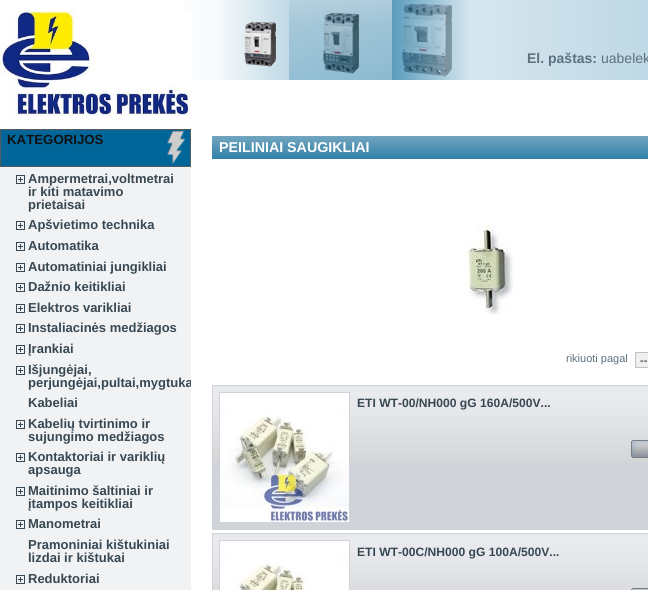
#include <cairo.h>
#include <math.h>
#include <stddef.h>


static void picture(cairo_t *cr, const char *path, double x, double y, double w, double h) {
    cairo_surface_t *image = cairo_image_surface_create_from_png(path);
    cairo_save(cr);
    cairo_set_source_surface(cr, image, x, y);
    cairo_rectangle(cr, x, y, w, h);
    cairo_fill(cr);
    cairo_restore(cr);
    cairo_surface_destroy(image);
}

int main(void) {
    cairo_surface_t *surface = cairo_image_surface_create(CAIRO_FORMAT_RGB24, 648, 590);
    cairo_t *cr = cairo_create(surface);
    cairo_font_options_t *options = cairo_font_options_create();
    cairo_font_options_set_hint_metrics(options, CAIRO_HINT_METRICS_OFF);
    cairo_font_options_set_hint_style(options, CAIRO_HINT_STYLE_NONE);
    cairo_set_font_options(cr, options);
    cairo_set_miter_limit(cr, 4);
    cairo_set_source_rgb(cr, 1, 1, 1);
    cairo_paint(cr);
    picture(cr, "img1.png", 185, 0, 463, 80);
    picture(cr, "img2.png", 0, 10, 191, 106);
    cairo_select_font_face(cr, "Liberation Sans", CAIRO_FONT_SLANT_NORMAL, CAIRO_FONT_WEIGHT_BOLD);
    cairo_set_font_size(cr, 14);
    cairo_set_source_rgb(cr, 0.365, 0.443, 0.494);
    cairo_move_to(cr, 527, 63);
    cairo_show_text(cr, "El. paštas:");
    cairo_select_font_face(cr, "Liberation Sans", CAIRO_FONT_SLANT_NORMAL, CAIRO_FONT_WEIGHT_NORMAL);
    cairo_move_to(cr, 601, 63);
    cairo_show_text(cr, "uabelek");
    picture(cr, "img3.png", 0, 129, 191, 37);
    cairo_set_source_rgb(cr, 0.349, 0.353, 0.369);
    cairo_rectangle(cr, 0, 166, 191, 1);
    cairo_fill(cr);
    cairo_select_font_face(cr, "Liberation Sans", CAIRO_FONT_SLANT_NORMAL, CAIRO_FONT_WEIGHT_BOLD);
    cairo_set_font_size(cr, 13.25);
    cairo_set_source_rgb(cr, 0.067, 0.067, 0.067);
    cairo_move_to(cr, 7, 144);
    cairo_show_text(cr, "KATEGORIJOS");
    cairo_set_source_rgb(cr, 0.945, 0.949, 0.957);
    cairo_rectangle(cr, 0, 167, 191, 423);
    cairo_fill(cr);
    picture(cr, "img4.png", 16, 175, 9, 9);
    cairo_set_font_size(cr, 13);
    cairo_set_source_rgb(cr, 0.216, 0.282, 0.325);
    cairo_move_to(cr, 28, 183);
    cairo_show_text(cr, "Ampermetrai,voltmetrai");
    cairo_move_to(cr, 28, 196);
    cairo_show_text(cr, "ir kiti matavimo");
    cairo_move_to(cr, 28, 209);
    cairo_show_text(cr, "prietaisai");
    picture(cr, "img4.png", 16, 221, 9, 9);
    cairo_move_to(cr, 28, 229);
    cairo_show_text(cr, "Apšvietimo technika");
    picture(cr, "img4.png", 16, 242, 9, 9);
    cairo_move_to(cr, 28, 250);
    cairo_show_text(cr, "Automatika");
    picture(cr, "img4.png", 16, 263, 9, 9);
    cairo_move_to(cr, 28, 271);
    cairo_show_text(cr, "Automatiniai jungikliai");
    picture(cr, "img4.png", 16, 283, 9, 9);
    cairo_move_to(cr, 28, 291);
    cairo_show_text(cr, "Dažnio keitikliai");
    picture(cr, "img4.png", 16, 304, 9, 9);
    cairo_move_to(cr, 28, 312);
    cairo_show_text(cr, "Elektros varikliai");
    picture(cr, "img4.png", 16, 324, 9, 9);
    cairo_move_to(cr, 28, 332);
    cairo_show_text(cr, "Instaliacinės medžiagos");
    picture(cr, "img4.png", 16, 345, 9, 9);
    cairo_move_to(cr, 28, 353);
    cairo_show_text(cr, "Įrankiai");
    picture(cr, "img4.png", 16, 366, 9, 9);
    cairo_move_to(cr, 28, 374);
    cairo_show_text(cr, "Išjungėjai,");
    cairo_save(cr);
    cairo_rectangle(cr, 0, 129, 191, 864);
    cairo_clip(cr);
    cairo_move_to(cr, 28, 387);
    cairo_show_text(cr, "perjungėjai,pultai,mygtuka");
    cairo_restore(cr);
    cairo_move_to(cr, 28, 407);
    cairo_show_text(cr, "Kabeliai");
    picture(cr, "img4.png", 16, 420, 9, 9);
    cairo_move_to(cr, 28, 428);
    cairo_show_text(cr, "Kabelių tvirtinimo ir");
    cairo_move_to(cr, 28, 441);
    cairo_show_text(cr, "sujungimo medžiagos");
    picture(cr, "img4.png", 16, 453, 9, 9);
    cairo_move_to(cr, 28, 461);
    cairo_show_text(cr, "Kontaktoriai ir variklių");
    cairo_move_to(cr, 28, 474);
    cairo_show_text(cr, "apsauga");
    picture(cr, "img4.png", 16, 487, 9, 9);
    cairo_move_to(cr, 28, 495);
    cairo_show_text(cr, "Maitinimo šaltiniai ir");
    cairo_move_to(cr, 28, 508);
    cairo_show_text(cr, "įtampos keitikliai");
    picture(cr, "img4.png", 16, 520, 9, 9);
    cairo_move_to(cr, 28, 528);
    cairo_show_text(cr, "Manometrai");
    cairo_move_to(cr, 28, 549);
    cairo_show_text(cr, "Pramoniniai kištukiniai");
    cairo_move_to(cr, 28, 562);
    cairo_show_text(cr, "lizdai ir kištukai");
    picture(cr, "img4.png", 16, 575, 9, 9);
    cairo_move_to(cr, 28, 583);
    cairo_show_text(cr, "Reduktoriai");
    picture(cr, "img5.png", 212, 136, 436, 23);
    cairo_set_font_size(cr, 14.25);
    cairo_set_source_rgb(cr, 1, 1, 1);
    cairo_move_to(cr, 219, 152);
    cairo_show_text(cr, "PEILINIAI SAUGIKLIAI");
    picture(cr, "img6.png", 464, 225, 50, 89);
    cairo_select_font_face(cr, "Liberation Sans", CAIRO_FONT_SLANT_NORMAL, CAIRO_FONT_WEIGHT_NORMAL);
    cairo_set_font_size(cr, 11);
    cairo_set_source_rgb(cr, 0.365, 0.443, 0.494);
    cairo_move_to(cr, 566, 362);
    cairo_show_text(cr, "rikiuoti pagal");
    cairo_set_source_rgb(cr, 0.937, 0.937, 0.937);
    cairo_rectangle(cr, 635.5, 352.5, 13, 15);
    cairo_fill_preserve(cr);
    cairo_set_source_rgb(cr, 0.741, 0.761, 0.788);
    cairo_set_line_width(cr, 1);
    cairo_stroke(cr);
    cairo_set_source_rgb(cr, 0, 0, 0);
    cairo_move_to(cr, 640, 364);
    cairo_show_text(cr, "--");
    cairo_set_source_rgb(cr, 0.816, 0.827, 0.847);
    cairo_rectangle(cr, 213, 463, 435, 66);
    cairo_fill(cr);
    picture(cr, "img7.png", 213, 386, 435, 77);
    cairo_rectangle(cr, 212.5, 385.5, 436, 144);
    cairo_stroke(cr);
    cairo_rectangle(cr, 219.5, 392.5, 130, 130);
    cairo_stroke(cr);
    picture(cr, "img8.png", 220, 393, 129, 129);
    cairo_select_font_face(cr, "Liberation Sans", CAIRO_FONT_SLANT_NORMAL, CAIRO_FONT_WEIGHT_BOLD);
    cairo_set_font_size(cr, 12.1);
    cairo_set_source_rgb(cr, 0.216, 0.282, 0.325);
    cairo_move_to(cr, 357, 407);
    cairo_show_text(cr, "ETI WT-00/NH000 gG 160A/500V...");
    picture(cr, "img9.png", 631, 440, 17, 18);
    picture(cr, "img10.png", 213, 534, 435, 56);
    cairo_rectangle(cr, 212.5, 533.5, 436, 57);
    cairo_set_source_rgb(cr, 0.816, 0.827, 0.847);
    cairo_stroke(cr);
    cairo_rectangle(cr, 219.5, 540.5, 130, 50);
    cairo_stroke(cr);
    picture(cr, "img11.png", 220, 541, 129, 49);
    cairo_set_source_rgb(cr, 0.216, 0.282, 0.325);
    cairo_move_to(cr, 357, 556);
    cairo_show_text(cr, "ETI WT-00C/NH000 gG 100A/500V...");
    picture(cr, "img12.png", 631, 588, 17, 2);
    cairo_surface_write_to_png(surface, "page.png");
    cairo_font_options_destroy(options);
    cairo_destroy(cr);
    cairo_surface_destroy(surface);
    return 0;
}
